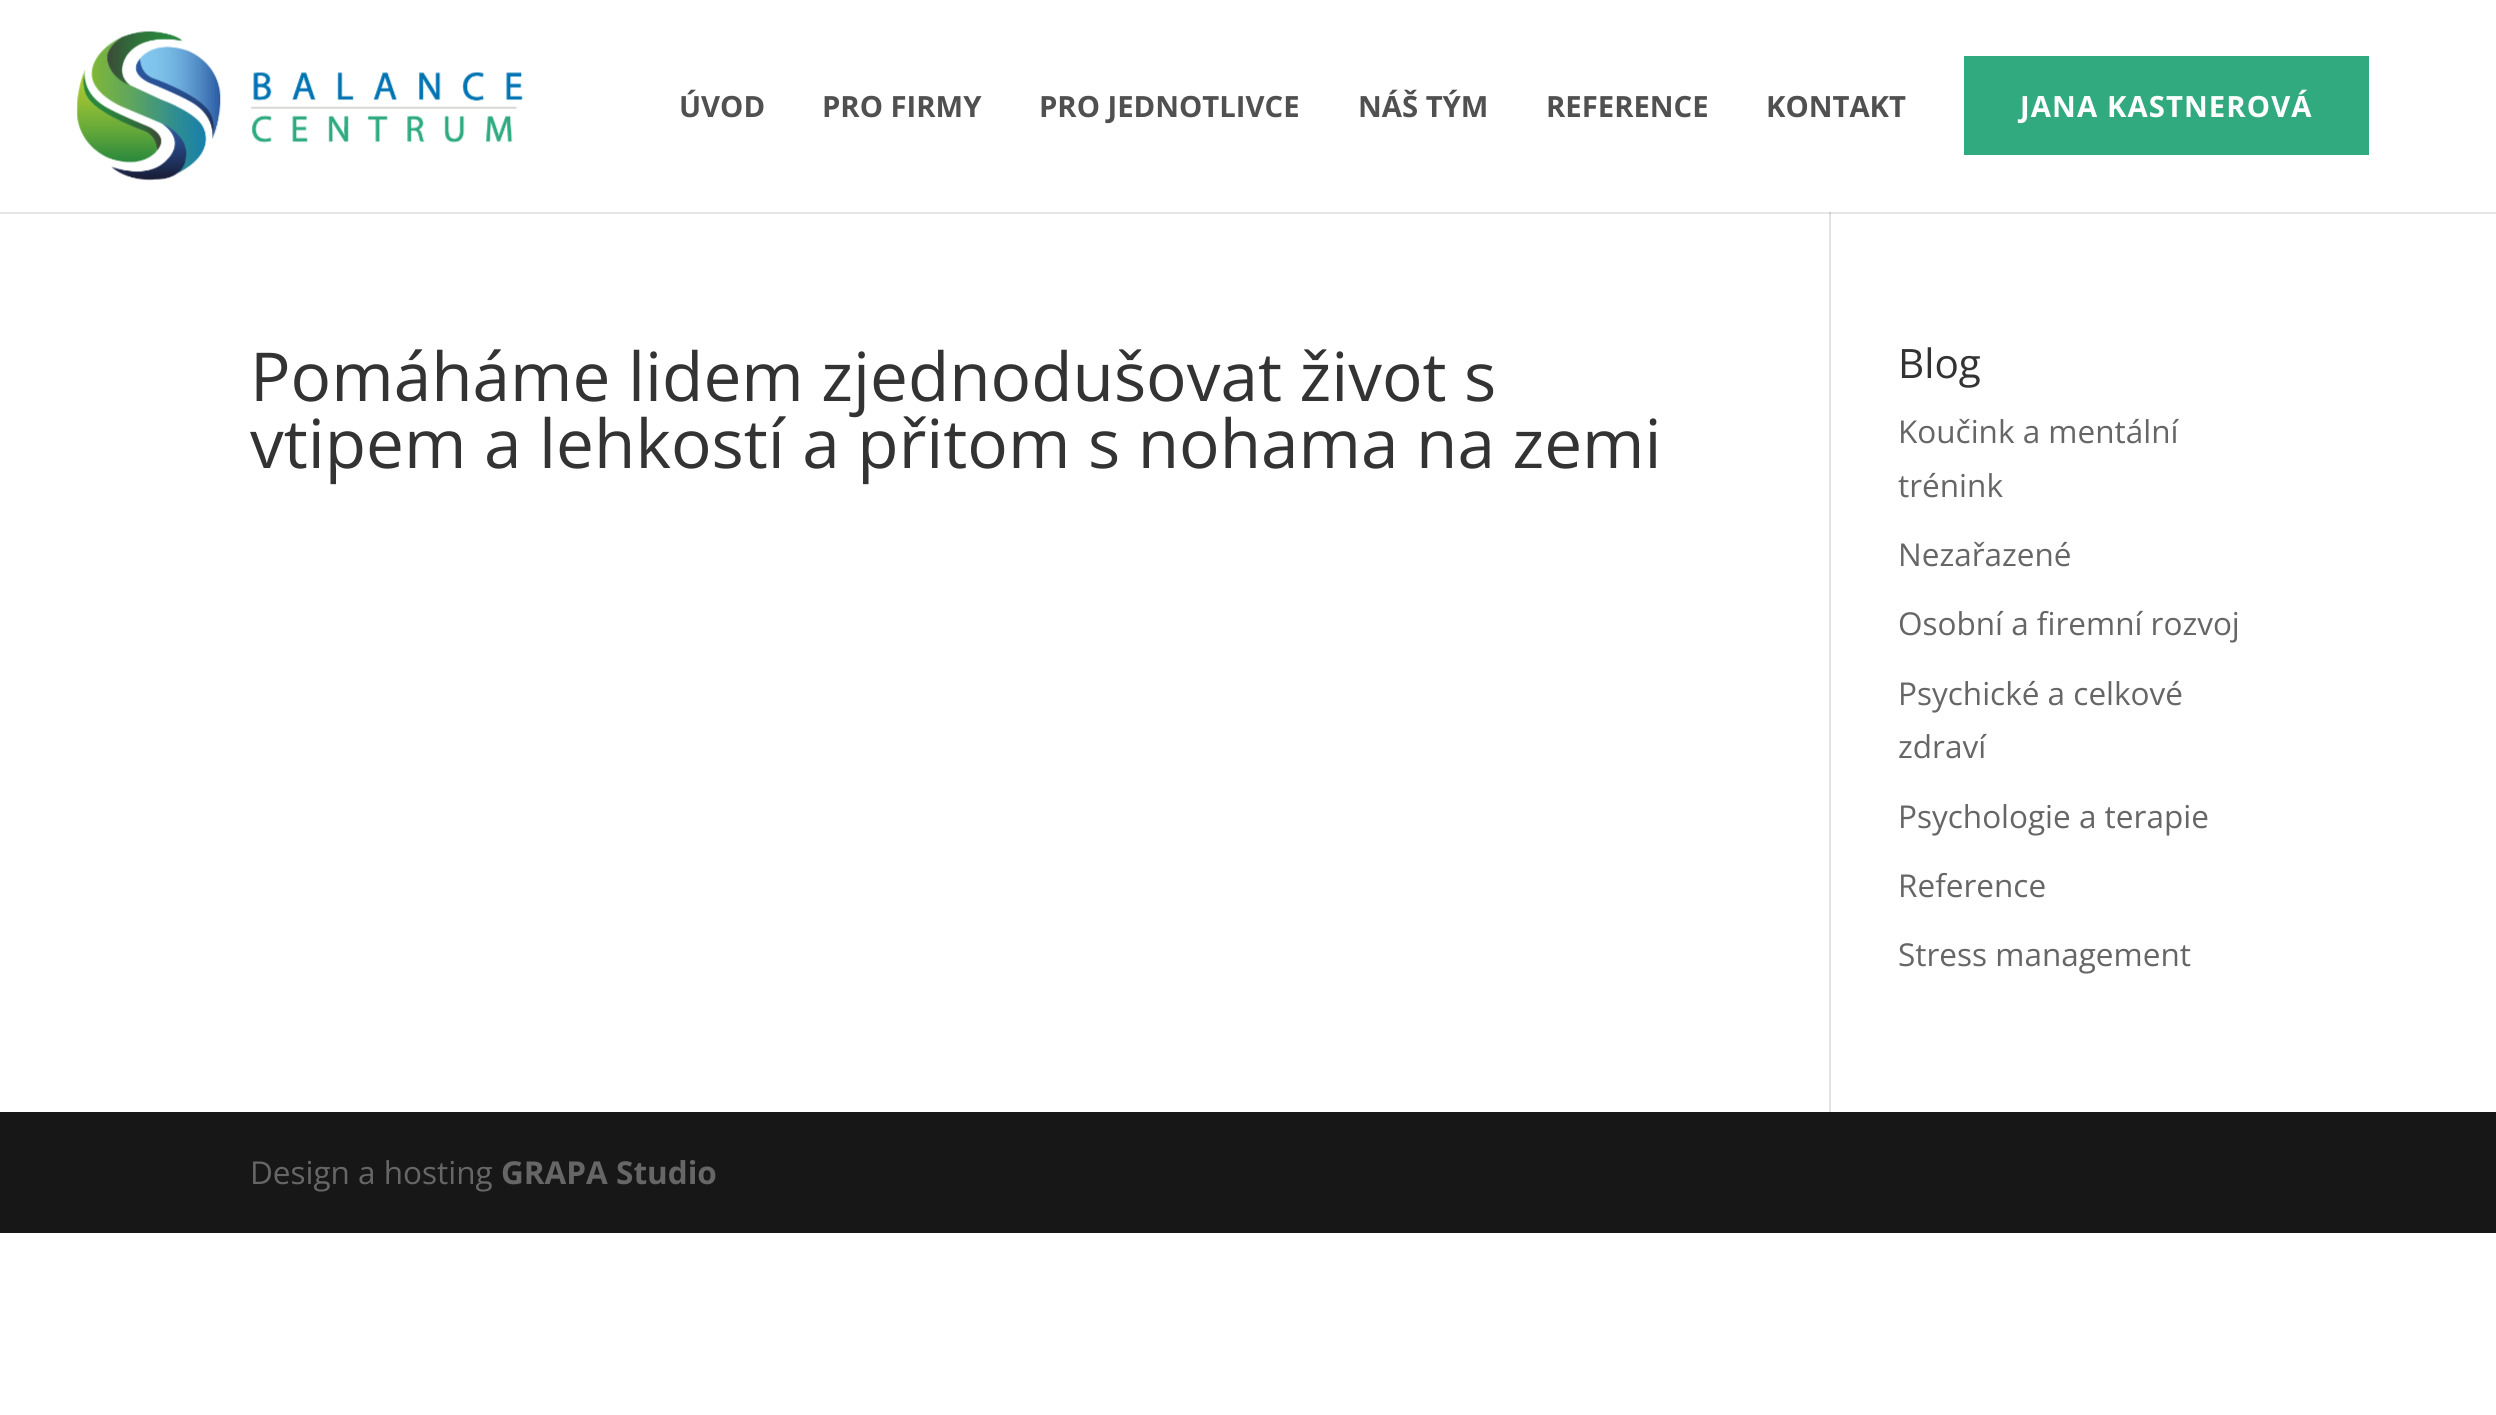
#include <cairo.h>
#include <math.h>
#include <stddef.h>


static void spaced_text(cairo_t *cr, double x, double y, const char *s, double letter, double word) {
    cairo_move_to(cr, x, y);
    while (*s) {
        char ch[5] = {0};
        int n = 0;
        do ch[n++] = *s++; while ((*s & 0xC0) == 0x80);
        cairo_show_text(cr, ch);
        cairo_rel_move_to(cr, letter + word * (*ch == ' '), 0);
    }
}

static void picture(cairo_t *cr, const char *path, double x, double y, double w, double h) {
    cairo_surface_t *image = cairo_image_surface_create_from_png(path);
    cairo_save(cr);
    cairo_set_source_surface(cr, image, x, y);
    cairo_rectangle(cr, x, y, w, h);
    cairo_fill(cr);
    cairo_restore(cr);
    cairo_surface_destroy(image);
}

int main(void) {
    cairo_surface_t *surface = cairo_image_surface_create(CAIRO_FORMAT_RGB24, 2496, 1415);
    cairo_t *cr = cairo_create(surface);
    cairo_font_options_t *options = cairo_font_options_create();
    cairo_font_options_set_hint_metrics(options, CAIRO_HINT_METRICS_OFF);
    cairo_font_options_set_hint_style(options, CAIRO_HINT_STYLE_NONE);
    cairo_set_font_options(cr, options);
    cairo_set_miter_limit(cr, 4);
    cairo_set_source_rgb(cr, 1, 1, 1);
    cairo_paint(cr);
    cairo_set_source_rgb(cr, 0.886, 0.886, 0.886);
    cairo_rectangle(cr, 1829, 212, 2, 900);
    cairo_fill(cr);
    cairo_set_source_rgba(cr, 0, 0, 0, 0.1);
    cairo_new_path(cr);
    cairo_move_to(cr, 0, 212);
    cairo_line_to(cr, 0, 214);
    cairo_line_to(cr, 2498, 214);
    cairo_line_to(cr, 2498, 2);
    cairo_line_to(cr, 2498, 212);
    cairo_close_path(cr);
    cairo_fill(cr);
    picture(cr, "img1.png", 76, 31, 447, 150);
    cairo_select_font_face(cr, "Open Sans", CAIRO_FONT_SLANT_NORMAL, CAIRO_FONT_WEIGHT_BOLD);
    cairo_set_font_size(cr, 29.25);
    cairo_set_source_rgb(cr, 0.314, 0.314, 0.314);
    cairo_move_to(cr, 679, 117);
    cairo_show_text(cr, "ÚVOD");
    cairo_move_to(cr, 822, 117);
    cairo_show_text(cr, "PRO FIRMY");
    cairo_move_to(cr, 1039, 117);
    cairo_show_text(cr, "PRO JEDNOTLIVCE");
    cairo_move_to(cr, 1358, 117);
    cairo_show_text(cr, "NÁŠ TÝM");
    cairo_move_to(cr, 1546, 117);
    cairo_show_text(cr, "REFERENCE");
    cairo_move_to(cr, 1766, 117);
    cairo_show_text(cr, "KONTAKT");
    cairo_set_source_rgb(cr, 0.192, 0.667, 0.502);
    cairo_rectangle(cr, 1964, 56, 405, 99);
    cairo_fill(cr);
    cairo_set_source_rgb(cr, 1, 1, 1);
    spaced_text(cr, 2020, 117, "JANA KASTNEROVÁ", 1.1, 0);
    cairo_select_font_face(cr, "Open Sans", CAIRO_FONT_SLANT_NORMAL, CAIRO_FONT_WEIGHT_NORMAL);
    cairo_set_font_size(cr, 67.5);
    cairo_set_source_rgb(cr, 0.2, 0.2, 0.2);
    cairo_move_to(cr, 250, 401);
    cairo_show_text(cr, "Pomáháme lidem zjednodušovat život s");
    cairo_move_to(cr, 250, 468);
    cairo_show_text(cr, "vtipem a lehkostí a přitom s nohama na zemi");
    cairo_set_font_size(cr, 40.5);
    cairo_move_to(cr, 1898, 378);
    cairo_show_text(cr, "Blog");
    cairo_set_font_size(cr, 31.5);
    cairo_set_source_rgb(cr, 0.4, 0.4, 0.4);
    cairo_move_to(cr, 1898, 443);
    cairo_show_text(cr, "Koučink a mentální");
    cairo_move_to(cr, 1898, 497);
    cairo_show_text(cr, "trénink");
    cairo_move_to(cr, 1898, 566);
    cairo_show_text(cr, "Nezařazené");
    cairo_move_to(cr, 1898, 635);
    cairo_show_text(cr, "Osobní a firemní rozvoj");
    cairo_move_to(cr, 1898, 705);
    cairo_show_text(cr, "Psychické a celkové");
    cairo_move_to(cr, 1898, 758);
    cairo_show_text(cr, "zdraví");
    cairo_move_to(cr, 1898, 828);
    cairo_show_text(cr, "Psychologie a terapie");
    cairo_move_to(cr, 1898, 897);
    cairo_show_text(cr, "Reference");
    cairo_move_to(cr, 1898, 966);
    cairo_show_text(cr, "Stress management");
    cairo_set_source_rgb(cr, 0.09, 0.09, 0.09);
    cairo_rectangle(cr, 0, 1112, 2496, 121);
    cairo_fill(cr);
    cairo_set_source_rgb(cr, 0.4, 0.4, 0.4);
    cairo_move_to(cr, 250, 1184);
    cairo_show_text(cr, "Design a hosting");
    cairo_select_font_face(cr, "Open Sans", CAIRO_FONT_SLANT_NORMAL, CAIRO_FONT_WEIGHT_BOLD);
    cairo_move_to(cr, 501, 1184);
    cairo_show_text(cr, "GRAPA Studio");
    cairo_surface_write_to_png(surface, "page.png");
    cairo_font_options_destroy(options);
    cairo_destroy(cr);
    cairo_surface_destroy(surface);
    return 0;
}
